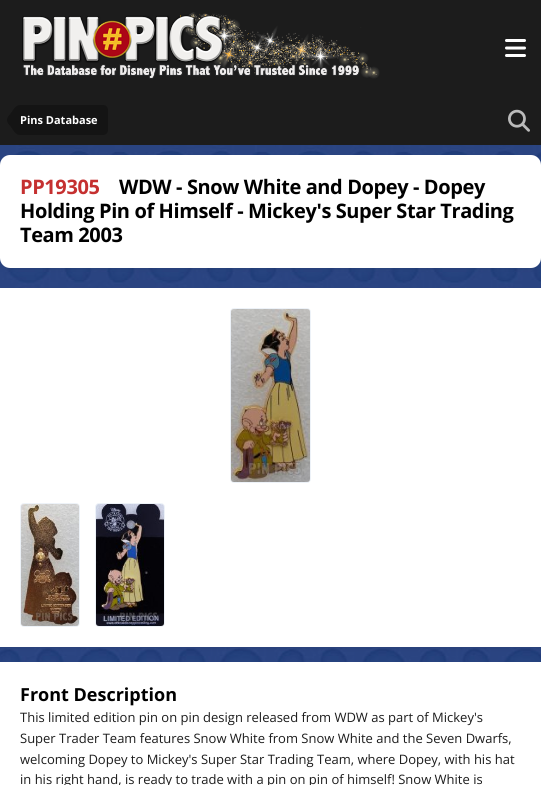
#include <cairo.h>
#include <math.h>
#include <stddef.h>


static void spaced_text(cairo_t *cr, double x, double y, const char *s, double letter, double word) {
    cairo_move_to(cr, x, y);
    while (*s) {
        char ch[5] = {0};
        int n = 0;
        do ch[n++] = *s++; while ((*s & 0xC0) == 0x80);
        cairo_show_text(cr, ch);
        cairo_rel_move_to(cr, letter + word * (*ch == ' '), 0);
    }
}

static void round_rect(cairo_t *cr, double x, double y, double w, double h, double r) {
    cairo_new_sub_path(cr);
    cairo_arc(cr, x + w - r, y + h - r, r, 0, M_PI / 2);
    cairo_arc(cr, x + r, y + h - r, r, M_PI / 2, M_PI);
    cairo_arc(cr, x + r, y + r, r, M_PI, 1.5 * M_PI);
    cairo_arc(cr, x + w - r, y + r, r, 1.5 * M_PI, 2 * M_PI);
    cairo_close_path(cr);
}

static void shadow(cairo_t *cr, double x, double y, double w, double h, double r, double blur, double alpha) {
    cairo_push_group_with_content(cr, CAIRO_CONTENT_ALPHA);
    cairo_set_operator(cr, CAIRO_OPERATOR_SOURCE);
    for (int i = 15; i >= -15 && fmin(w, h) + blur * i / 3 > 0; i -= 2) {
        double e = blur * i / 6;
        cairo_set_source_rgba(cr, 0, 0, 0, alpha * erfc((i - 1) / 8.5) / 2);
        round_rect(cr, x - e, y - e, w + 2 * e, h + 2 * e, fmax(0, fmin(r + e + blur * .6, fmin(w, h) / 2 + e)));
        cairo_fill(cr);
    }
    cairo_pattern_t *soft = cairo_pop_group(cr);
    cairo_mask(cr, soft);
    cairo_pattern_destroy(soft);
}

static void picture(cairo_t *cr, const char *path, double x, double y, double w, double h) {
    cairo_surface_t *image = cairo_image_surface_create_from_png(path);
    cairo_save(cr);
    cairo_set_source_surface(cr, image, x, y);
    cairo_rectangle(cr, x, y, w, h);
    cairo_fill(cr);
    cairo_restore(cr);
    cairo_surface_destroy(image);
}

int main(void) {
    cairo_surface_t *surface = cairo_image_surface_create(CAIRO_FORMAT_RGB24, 541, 785);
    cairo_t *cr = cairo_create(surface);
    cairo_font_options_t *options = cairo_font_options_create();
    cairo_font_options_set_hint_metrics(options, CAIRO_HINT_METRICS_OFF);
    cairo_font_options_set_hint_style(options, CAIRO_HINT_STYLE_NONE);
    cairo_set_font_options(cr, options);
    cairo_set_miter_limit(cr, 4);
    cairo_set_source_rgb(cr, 1, 1, 1);
    cairo_paint(cr);
    picture(cr, "img1.png", 0, 145, 541, 517);
    cairo_set_source_rgb(cr, 0.11, 0.11, 0.11);
    cairo_rectangle(cr, 0, 0, 541, 145);
    cairo_fill(cr);
    picture(cr, "img2.png", 22, 12, 358, 67);
    picture(cr, "img3.png", 505, 39, 21, 18);
    cairo_set_source_rgb(cr, 0.082, 0.082, 0.082);
    cairo_new_path(cr);
    cairo_move_to(cr, 20, 105);
    cairo_line_to(cr, 103, 105);
    cairo_curve_to(cr, 106, 105, 108, 107, 108, 110);
    cairo_line_to(cr, 108, 130);
    cairo_curve_to(cr, 108, 133, 106, 135, 103, 135);
    cairo_line_to(cr, 20, 135);
    cairo_close_path(cr);
    cairo_fill(cr);
    cairo_new_path(cr);
    cairo_move_to(cr, 20, 120);
    cairo_line_to(cr, 20, 135);
    cairo_curve_to(cr, 15.5, 135, 13.5, 130.5, 11, 127);
    cairo_curve_to(cr, 9.5, 125, 7, 123, 7, 120);
    cairo_close_path(cr);
    cairo_move_to(cr, 20, 120);
    cairo_line_to(cr, 7, 120);
    cairo_curve_to(cr, 7, 117, 9.5, 115, 11, 113);
    cairo_curve_to(cr, 13.5, 109.5, 15.5, 105, 20, 105);
    cairo_close_path(cr);
    cairo_fill(cr);
    cairo_select_font_face(cr, "Open Sans", CAIRO_FONT_SLANT_NORMAL, CAIRO_FONT_WEIGHT_BOLD);
    cairo_set_font_size(cr, 11);
    cairo_set_source_rgb(cr, 1, 1, 1);
    cairo_move_to(cr, 20, 124);
    cairo_show_text(cr, "Pins Database");
    picture(cr, "img4.png", 508, 109, 22, 23);
    cairo_set_source_rgb(cr, 0.11, 0.11, 0.11);
    shadow(cr, 1, 158, 539, 111, 9, 2, 0.1);
    cairo_set_source_rgb(cr, 1, 1, 1);
    round_rect(cr, 0, 155, 541, 113, 10);
    cairo_fill(cr);
    cairo_set_font_size(cr, 20);
    cairo_set_source_rgb(cr, 0.773, 0.188, 0.188);
    spaced_text(cr, 20, 194, "PP19305", -0.4, 0);
    cairo_set_source_rgb(cr, 0, 0, 0);
    spaced_text(cr, 119, 194, "WDW - Snow White and Dopey - Dopey", -0.4, 0);
    spaced_text(cr, 20, 218, "Holding Pin of Himself - Mickey's Super Star Trading", -0.4, 0);
    spaced_text(cr, 20, 242, "Team 2003", -0.4, 0);
    cairo_set_source_rgb(cr, 0.11, 0.11, 0.11);
    shadow(cr, 1, 291, 539, 357, 0, 2, 0.1);
    cairo_set_source_rgb(cr, 1, 1, 1);
    cairo_rectangle(cr, 0, 288, 541, 359);
    cairo_fill(cr);
    round_rect(cr, 230.5, 308.5, 80, 174, 3.5);
    cairo_set_source_rgb(cr, 0.929, 0.949, 0.969);
    cairo_set_line_width(cr, 1);
    cairo_stroke(cr);
    picture(cr, "img5.png", 231, 309, 79, 173);
    round_rect(cr, 20.5, 503.5, 59, 123, 3.5);
    cairo_stroke(cr);
    picture(cr, "img6.png", 21, 504, 58, 122);
    round_rect(cr, 95.5, 503.5, 69, 123, 3.5);
    cairo_stroke(cr);
    picture(cr, "img7.png", 96, 504, 68, 122);
    cairo_set_font_size(cr, 18);
    cairo_set_source_rgb(cr, 0, 0, 0);
    cairo_move_to(cr, 20, 701);
    cairo_show_text(cr, "Front Description");
    cairo_select_font_face(cr, "Open Sans", CAIRO_FONT_SLANT_NORMAL, CAIRO_FONT_WEIGHT_NORMAL);
    cairo_set_font_size(cr, 13);
    cairo_set_source_rgb(cr, 0.11, 0.11, 0.11);
    cairo_move_to(cr, 20, 722);
    cairo_show_text(cr, "This limited edition pin on pin design released from WDW as part of Mickey's");
    cairo_move_to(cr, 20, 743);
    cairo_show_text(cr, "Super Trader Team features Snow White from Snow White and the Seven Dwarfs,");
    cairo_move_to(cr, 20, 764);
    cairo_show_text(cr, "welcoming Dopey to Mickey's Super Star Trading Team, where Dopey, with his hat");
    cairo_move_to(cr, 20, 784);
    cairo_show_text(cr, "in his right hand, is ready to trade with a pin on pin of himself! Snow White is");
    cairo_surface_write_to_png(surface, "page.png");
    cairo_font_options_destroy(options);
    cairo_destroy(cr);
    cairo_surface_destroy(surface);
    return 0;
}
